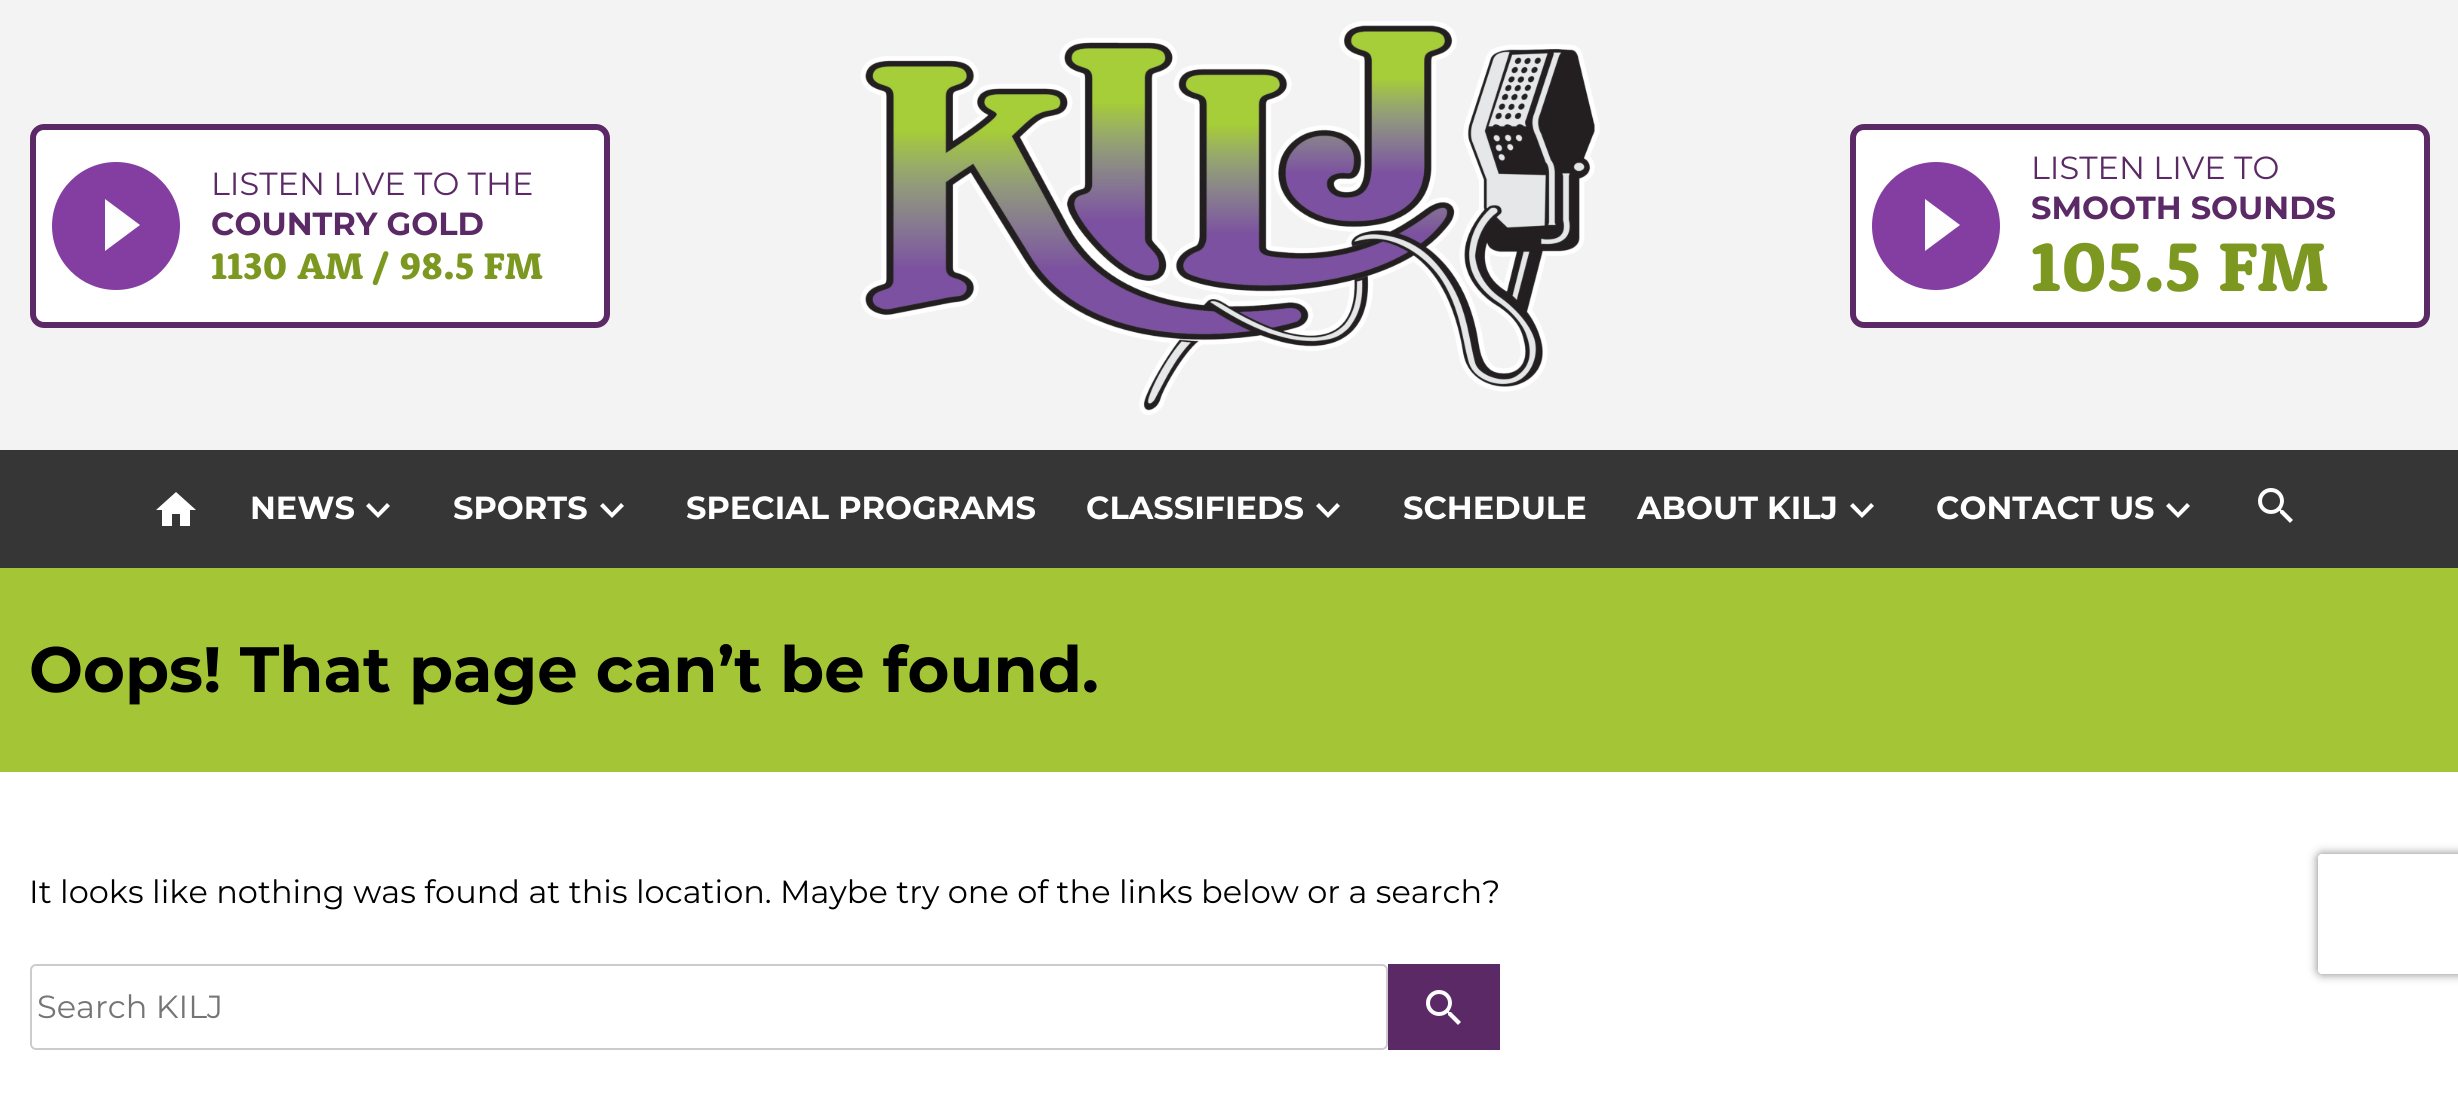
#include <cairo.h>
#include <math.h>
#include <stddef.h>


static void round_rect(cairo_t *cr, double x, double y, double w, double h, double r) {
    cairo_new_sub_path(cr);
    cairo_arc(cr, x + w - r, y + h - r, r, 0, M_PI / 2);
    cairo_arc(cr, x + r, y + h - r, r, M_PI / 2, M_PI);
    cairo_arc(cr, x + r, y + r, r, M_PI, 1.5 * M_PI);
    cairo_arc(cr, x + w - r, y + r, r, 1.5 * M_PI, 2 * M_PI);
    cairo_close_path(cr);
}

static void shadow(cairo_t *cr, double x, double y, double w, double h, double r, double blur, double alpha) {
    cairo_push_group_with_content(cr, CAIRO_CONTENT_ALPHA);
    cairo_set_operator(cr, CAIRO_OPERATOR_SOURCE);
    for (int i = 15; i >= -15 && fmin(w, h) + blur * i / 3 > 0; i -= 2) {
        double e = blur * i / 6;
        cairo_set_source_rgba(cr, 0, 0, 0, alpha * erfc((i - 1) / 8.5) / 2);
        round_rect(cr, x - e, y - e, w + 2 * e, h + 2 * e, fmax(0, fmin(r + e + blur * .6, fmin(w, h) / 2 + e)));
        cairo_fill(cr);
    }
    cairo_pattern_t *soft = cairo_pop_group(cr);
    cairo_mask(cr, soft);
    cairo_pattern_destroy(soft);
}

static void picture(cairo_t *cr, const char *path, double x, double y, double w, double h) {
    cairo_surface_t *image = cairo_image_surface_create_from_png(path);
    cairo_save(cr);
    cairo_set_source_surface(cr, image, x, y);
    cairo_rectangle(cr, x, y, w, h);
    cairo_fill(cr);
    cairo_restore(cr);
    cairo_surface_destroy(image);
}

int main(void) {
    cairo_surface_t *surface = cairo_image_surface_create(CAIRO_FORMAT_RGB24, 2458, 1101);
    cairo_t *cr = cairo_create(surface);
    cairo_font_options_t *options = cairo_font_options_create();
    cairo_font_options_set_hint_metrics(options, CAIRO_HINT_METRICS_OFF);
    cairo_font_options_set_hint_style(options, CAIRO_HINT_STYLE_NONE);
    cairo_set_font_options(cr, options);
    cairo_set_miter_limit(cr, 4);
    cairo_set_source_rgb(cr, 1, 1, 1);
    cairo_paint(cr);
    cairo_set_source_rgb(cr, 0.953, 0.953, 0.953);
    cairo_rectangle(cr, 0, 0, 2458, 450);
    cairo_fill(cr);
    cairo_set_source_rgb(cr, 1, 1, 1);
    round_rect(cr, 33, 127, 574, 198, 11);
    cairo_fill_preserve(cr);
    cairo_set_source_rgb(cr, 0.357, 0.161, 0.396);
    cairo_set_line_width(cr, 6);
    cairo_stroke(cr);
    cairo_set_source_rgb(cr, 0.518, 0.243, 0.635);
    cairo_arc(cr, 116, 226, 64, 0, 2 * M_PI);
    cairo_fill(cr);
    cairo_set_source_rgb(cr, 0.996, 0.996, 1);
    cairo_new_path(cr);
    cairo_move_to(cr, 105, 251);
    cairo_line_to(cr, 140, 225);
    cairo_line_to(cr, 105, 199);
    cairo_close_path(cr);
    cairo_fill(cr);
    cairo_select_font_face(cr, "Montserrat", CAIRO_FONT_SLANT_NORMAL, CAIRO_FONT_WEIGHT_NORMAL);
    cairo_set_font_size(cr, 32);
    cairo_set_source_rgb(cr, 0.357, 0.161, 0.396);
    cairo_move_to(cr, 211, 195);
    cairo_show_text(cr, "LISTEN LIVE TO THE");
    cairo_select_font_face(cr, "Montserrat", CAIRO_FONT_SLANT_NORMAL, CAIRO_FONT_WEIGHT_BOLD);
    cairo_move_to(cr, 211, 235);
    cairo_show_text(cr, "COUNTRY GOLD");
    cairo_select_font_face(cr, "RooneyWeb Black", CAIRO_FONT_SLANT_NORMAL, CAIRO_FONT_WEIGHT_NORMAL);
    cairo_set_font_size(cr, 38);
    cairo_set_source_rgb(cr, 0.486, 0.596, 0.125);
    cairo_move_to(cr, 211, 279);
    cairo_show_text(cr, "1130 AM / 98.5 FM");
    picture(cr, "img1.png", 860, 21, 740, 394);
    cairo_set_source_rgb(cr, 1, 1, 1);
    round_rect(cr, 1853, 127, 574, 198, 11);
    cairo_fill_preserve(cr);
    cairo_set_source_rgb(cr, 0.357, 0.161, 0.396);
    cairo_stroke(cr);
    cairo_set_source_rgb(cr, 0.518, 0.243, 0.635);
    cairo_arc(cr, 1936, 226, 64, 0, 2 * M_PI);
    cairo_fill(cr);
    cairo_set_source_rgb(cr, 0.996, 0.996, 1);
    cairo_new_path(cr);
    cairo_move_to(cr, 1925, 251);
    cairo_line_to(cr, 1960, 225);
    cairo_line_to(cr, 1925, 199);
    cairo_close_path(cr);
    cairo_fill(cr);
    cairo_select_font_face(cr, "Montserrat", CAIRO_FONT_SLANT_NORMAL, CAIRO_FONT_WEIGHT_NORMAL);
    cairo_set_font_size(cr, 32);
    cairo_set_source_rgb(cr, 0.357, 0.161, 0.396);
    cairo_move_to(cr, 2031, 179);
    cairo_show_text(cr, "LISTEN LIVE TO");
    cairo_select_font_face(cr, "Montserrat", CAIRO_FONT_SLANT_NORMAL, CAIRO_FONT_WEIGHT_BOLD);
    cairo_move_to(cr, 2031, 219);
    cairo_show_text(cr, "SMOOTH SOUNDS");
    cairo_select_font_face(cr, "RooneyWeb Black", CAIRO_FONT_SLANT_NORMAL, CAIRO_FONT_WEIGHT_NORMAL);
    cairo_set_font_size(cr, 70.5);
    cairo_set_source_rgb(cr, 0.486, 0.596, 0.125);
    cairo_move_to(cr, 2031, 291);
    cairo_show_text(cr, "105.5 FM");
    cairo_set_source_rgb(cr, 0.212, 0.212, 0.212);
    cairo_rectangle(cr, 0, 450, 2458, 118);
    cairo_fill(cr);
    cairo_set_source_rgb(cr, 1, 1, 1);
    cairo_new_path(cr);
    cairo_move_to(cr, 172, 526);
    cairo_line_to(cr, 162, 526);
    cairo_line_to(cr, 162, 510);
    cairo_line_to(cr, 156, 510);
    cairo_line_to(cr, 176, 492);
    cairo_line_to(cr, 196, 510);
    cairo_line_to(cr, 190, 510);
    cairo_line_to(cr, 190, 526);
    cairo_line_to(cr, 180, 526);
    cairo_line_to(cr, 180, 514);
    cairo_line_to(cr, 172, 514);
    cairo_close_path(cr);
    cairo_fill(cr);
    cairo_select_font_face(cr, "Montserrat", CAIRO_FONT_SLANT_NORMAL, CAIRO_FONT_WEIGHT_BOLD);
    cairo_set_font_size(cr, 32);
    cairo_move_to(cr, 250, 519);
    cairo_show_text(cr, "NEWS");
    cairo_new_path(cr);
    cairo_move_to(cr, 387, 503);
    cairo_line_to(cr, 390, 506);
    cairo_line_to(cr, 378, 518);
    cairo_line_to(cr, 366, 506);
    cairo_line_to(cr, 369, 503);
    cairo_line_to(cr, 378, 512.5);
    cairo_close_path(cr);
    cairo_fill(cr);
    cairo_move_to(cr, 453, 519);
    cairo_show_text(cr, "SPORTS");
    cairo_new_path(cr);
    cairo_move_to(cr, 621, 503);
    cairo_line_to(cr, 624, 506);
    cairo_line_to(cr, 612, 518);
    cairo_line_to(cr, 600, 506);
    cairo_line_to(cr, 603, 503);
    cairo_line_to(cr, 612, 512.5);
    cairo_close_path(cr);
    cairo_fill(cr);
    cairo_move_to(cr, 686, 519);
    cairo_show_text(cr, "SPECIAL PROGRAMS");
    cairo_move_to(cr, 1086, 519);
    cairo_show_text(cr, "CLASSIFIEDS");
    cairo_new_path(cr);
    cairo_move_to(cr, 1337, 503);
    cairo_line_to(cr, 1340, 506);
    cairo_line_to(cr, 1328, 518);
    cairo_line_to(cr, 1316, 506);
    cairo_line_to(cr, 1319, 503);
    cairo_line_to(cr, 1328, 512.5);
    cairo_close_path(cr);
    cairo_fill(cr);
    cairo_move_to(cr, 1403, 519);
    cairo_show_text(cr, "SCHEDULE");
    cairo_move_to(cr, 1637, 519);
    cairo_show_text(cr, "ABOUT KILJ");
    cairo_new_path(cr);
    cairo_move_to(cr, 1871, 503);
    cairo_line_to(cr, 1874, 506);
    cairo_line_to(cr, 1862, 518);
    cairo_line_to(cr, 1850, 506);
    cairo_line_to(cr, 1853, 503);
    cairo_line_to(cr, 1862, 512.5);
    cairo_close_path(cr);
    cairo_fill(cr);
    cairo_move_to(cr, 1936, 519);
    cairo_show_text(cr, "CONTACT US");
    cairo_new_path(cr);
    cairo_move_to(cr, 2187, 503);
    cairo_line_to(cr, 2190, 506);
    cairo_line_to(cr, 2178, 518);
    cairo_line_to(cr, 2166, 506);
    cairo_line_to(cr, 2169, 503);
    cairo_line_to(cr, 2178, 512.5);
    cairo_close_path(cr);
    cairo_fill(cr);
    picture(cr, "img2.png", 2258, 488, 35, 35);
    cairo_set_source_rgb(cr, 0.643, 0.776, 0.212);
    cairo_rectangle(cr, 0, 568, 2458, 204);
    cairo_fill(cr);
    cairo_set_font_size(cr, 64);
    cairo_set_source_rgb(cr, 0, 0, 0);
    cairo_move_to(cr, 29, 692);
    cairo_show_text(cr, "Oops! That page can’t be found.");
    cairo_select_font_face(cr, "Montserrat", CAIRO_FONT_SLANT_NORMAL, CAIRO_FONT_WEIGHT_NORMAL);
    cairo_set_font_size(cr, 32);
    cairo_move_to(cr, 29, 903);
    cairo_show_text(cr, "It looks like nothing was found at this location. Maybe try one of the links below or a search?");
    round_rect(cr, 31, 965, 1356, 84, 5);
    cairo_set_source_rgb(cr, 0.8, 0.8, 0.8);
    cairo_set_line_width(cr, 2);
    cairo_stroke(cr);
    cairo_set_source_rgb(cr, 0.459, 0.459, 0.459);
    cairo_move_to(cr, 37, 1018);
    cairo_show_text(cr, "Search KILJ");
    cairo_set_source_rgb(cr, 0.357, 0.161, 0.396);
    cairo_rectangle(cr, 1388, 964, 112, 86);
    cairo_fill(cr);
    picture(cr, "img3.png", 1426, 990, 35, 35);
    cairo_save(cr);
    cairo_set_fill_rule(cr, CAIRO_FILL_RULE_EVEN_ODD);
    cairo_new_path(cr);
    cairo_move_to(cr, 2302, 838);
    cairo_line_to(cr, 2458, 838);
    cairo_line_to(cr, 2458, 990);
    cairo_line_to(cr, 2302, 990);
    cairo_close_path(cr);
    cairo_move_to(cr, 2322, 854);
    cairo_line_to(cr, 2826, 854);
    cairo_curve_to(cr, 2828, 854, 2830, 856, 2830, 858);
    cairo_line_to(cr, 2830, 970);
    cairo_curve_to(cr, 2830, 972, 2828, 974, 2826, 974);
    cairo_line_to(cr, 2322, 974);
    cairo_curve_to(cr, 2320, 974, 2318, 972, 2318, 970);
    cairo_line_to(cr, 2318, 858);
    cairo_curve_to(cr, 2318, 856, 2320, 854, 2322, 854);
    cairo_close_path(cr);
    cairo_clip(cr);
    cairo_set_source_rgb(cr, 0.502, 0.502, 0.502);
    shadow(cr, 2318, 854, 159, 120, 4, 5, 1);
    cairo_restore(cr);
    cairo_surface_write_to_png(surface, "page.png");
    cairo_font_options_destroy(options);
    cairo_destroy(cr);
    cairo_surface_destroy(surface);
    return 0;
}
